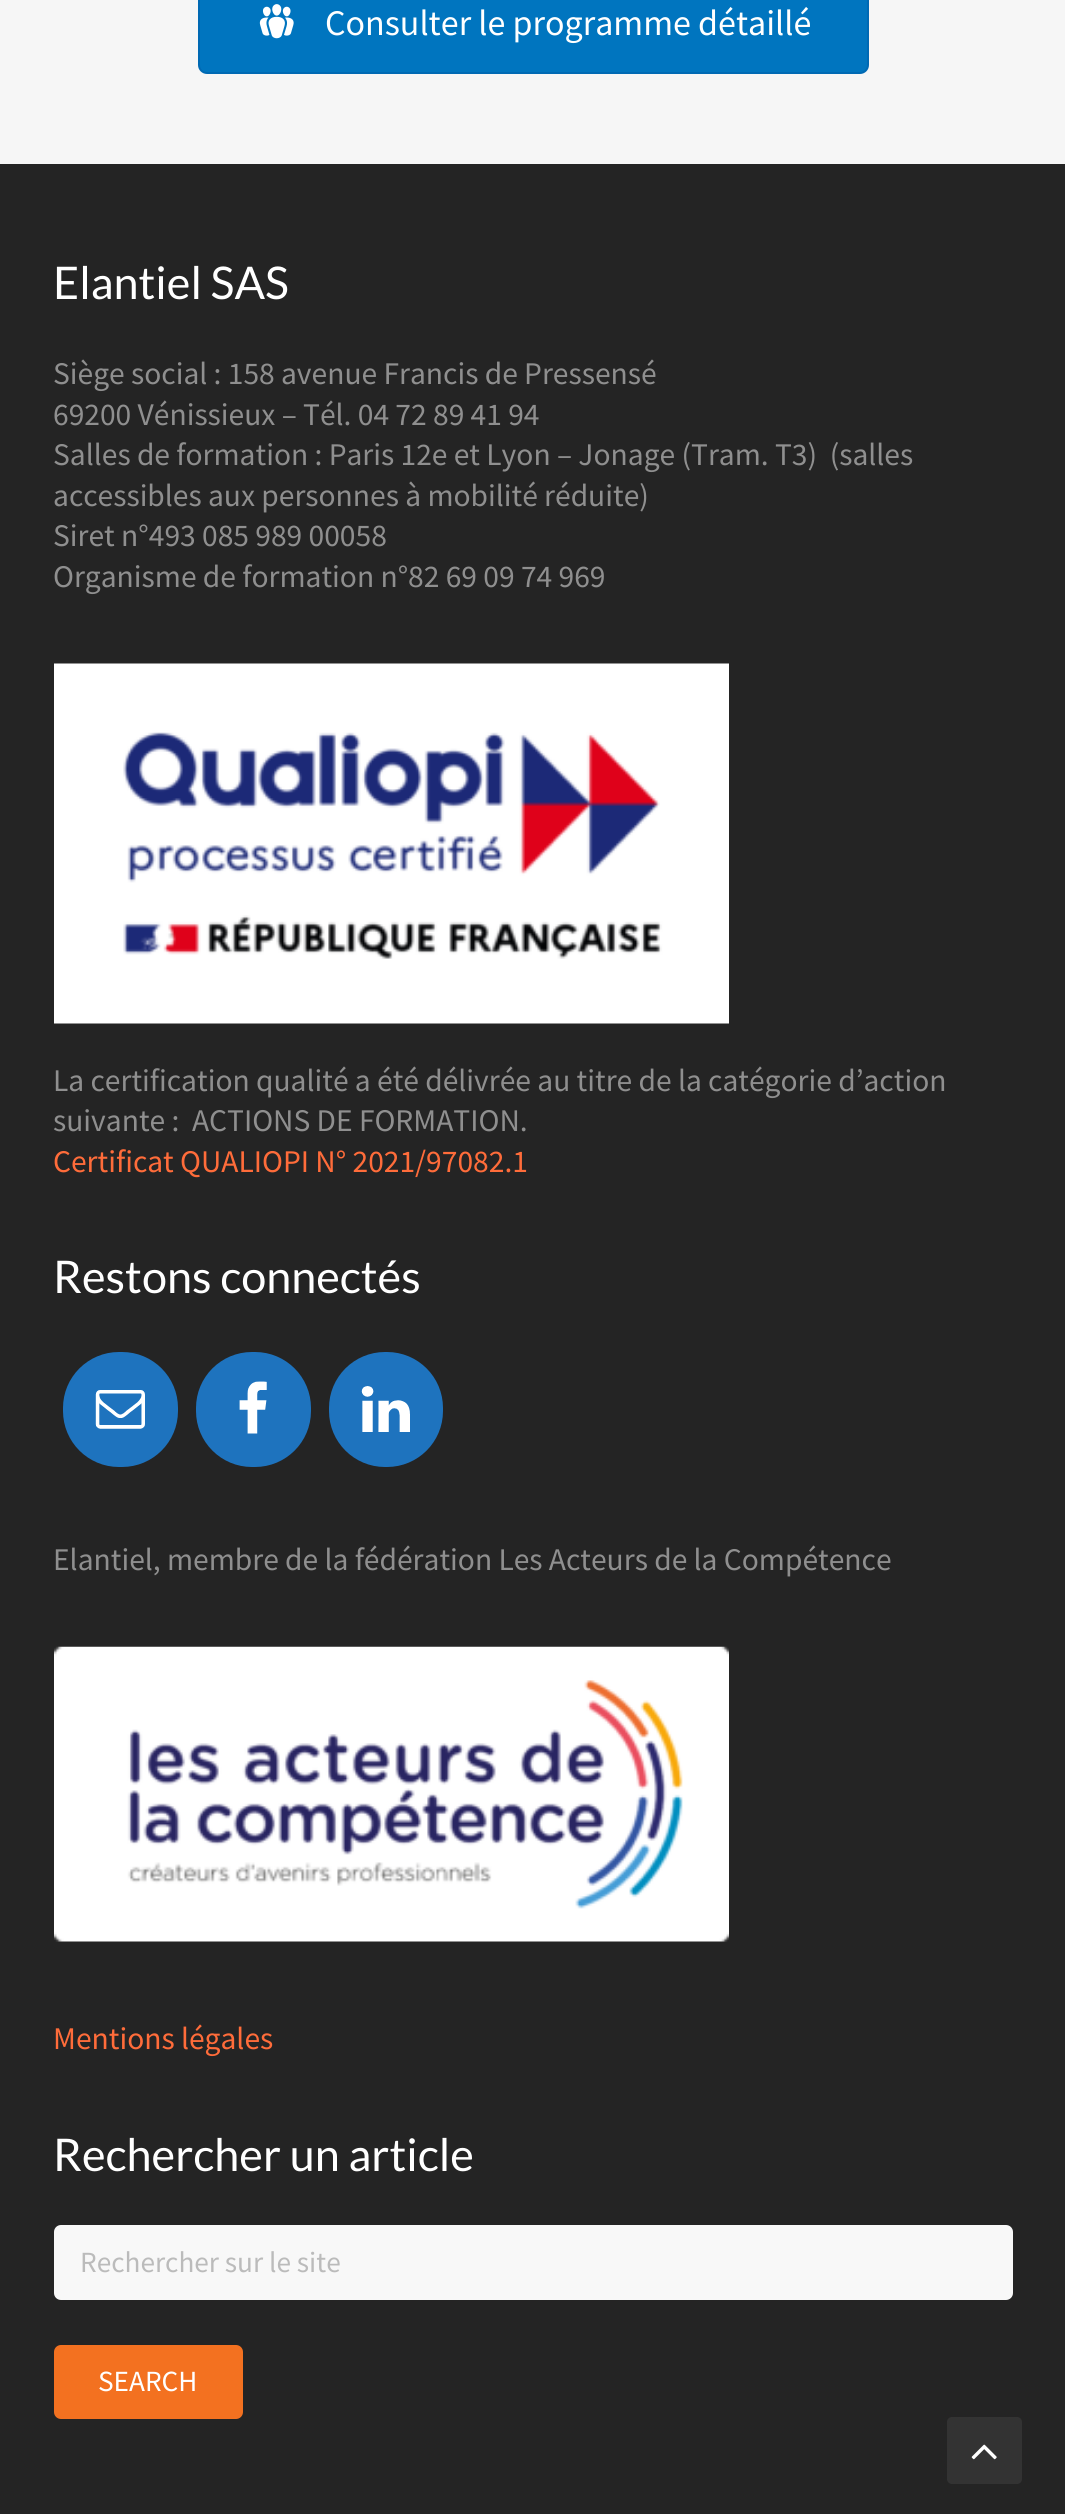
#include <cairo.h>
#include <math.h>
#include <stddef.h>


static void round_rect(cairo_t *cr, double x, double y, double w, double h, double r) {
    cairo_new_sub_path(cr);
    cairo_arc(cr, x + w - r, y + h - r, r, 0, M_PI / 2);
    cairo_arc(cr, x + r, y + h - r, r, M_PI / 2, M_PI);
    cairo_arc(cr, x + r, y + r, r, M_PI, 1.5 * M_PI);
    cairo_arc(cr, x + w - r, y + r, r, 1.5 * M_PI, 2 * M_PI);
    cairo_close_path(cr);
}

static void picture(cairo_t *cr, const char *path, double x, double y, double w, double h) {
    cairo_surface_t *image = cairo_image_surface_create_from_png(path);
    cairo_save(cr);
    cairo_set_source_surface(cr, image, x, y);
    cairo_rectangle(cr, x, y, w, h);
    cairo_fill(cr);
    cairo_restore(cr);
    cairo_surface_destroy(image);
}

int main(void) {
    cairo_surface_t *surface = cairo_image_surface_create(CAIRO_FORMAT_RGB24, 1065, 2514);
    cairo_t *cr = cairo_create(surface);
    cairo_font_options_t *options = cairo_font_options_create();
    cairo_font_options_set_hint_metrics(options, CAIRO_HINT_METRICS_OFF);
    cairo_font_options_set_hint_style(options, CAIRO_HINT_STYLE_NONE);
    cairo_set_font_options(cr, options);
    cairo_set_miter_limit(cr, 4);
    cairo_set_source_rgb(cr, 0.961, 0.961, 0.961);
    cairo_paint(cr);
    cairo_set_source_rgb(cr, 0, 0.459, 0.749);
    round_rect(cr, 199, -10, 669, 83, 8);
    cairo_fill_preserve(cr);
    cairo_set_source_rgb(cr, 0, 0.412, 0.702);
    cairo_stroke(cr);
    picture(cr, "img1.png", 259, 4, 35, 35);
    cairo_select_font_face(cr, "Source Sans Pro", CAIRO_FONT_SLANT_NORMAL, CAIRO_FONT_WEIGHT_NORMAL);
    cairo_set_font_size(cr, 36);
    cairo_set_source_rgb(cr, 1, 1, 1);
    cairo_move_to(cr, 325, 35);
    cairo_show_text(cr, "Consulter le programme détaillé");
    cairo_set_source_rgb(cr, 0.141, 0.141, 0.141);
    cairo_rectangle(cr, 0, 164, 1065, 2350);
    cairo_fill(cr);
    cairo_select_font_face(cr, "Lato", CAIRO_FONT_SLANT_NORMAL, CAIRO_FONT_WEIGHT_NORMAL);
    cairo_set_font_size(cr, 45);
    cairo_set_source_rgb(cr, 1, 1, 1);
    cairo_move_to(cr, 53, 299);
    cairo_show_text(cr, "Elantiel SAS");
    cairo_select_font_face(cr, "Source Sans Pro", CAIRO_FONT_SLANT_NORMAL, CAIRO_FONT_WEIGHT_NORMAL);
    cairo_set_font_size(cr, 31.5);
    cairo_set_source_rgb(cr, 0.561, 0.561, 0.561);
    cairo_move_to(cr, 53, 384);
    cairo_show_text(cr, "Siège social : 158 avenue Francis de Pressensé");
    cairo_move_to(cr, 53, 425);
    cairo_show_text(cr, "69200 Vénissieux – Tél. 04 72 89 41 94");
    cairo_move_to(cr, 53, 465);
    cairo_show_text(cr, "Salles de formation : Paris 12e et Lyon – Jonage (Tram. T3)  (salles");
    cairo_move_to(cr, 53, 506);
    cairo_show_text(cr, "accessibles aux personnes à mobilité réduite)");
    cairo_move_to(cr, 53, 546);
    cairo_show_text(cr, "Siret n°493 085 989 00058");
    cairo_move_to(cr, 53, 587);
    cairo_show_text(cr, "Organisme de formation n°82 69 09 74 969");
    picture(cr, "img2.png", 54, 663, 675, 361);
    cairo_move_to(cr, 53, 1091);
    cairo_show_text(cr, "La certification qualité a été délivrée au titre de la catégorie d’action");
    cairo_move_to(cr, 53, 1131);
    cairo_show_text(cr, "suivante :  ACTIONS DE FORMATION.");
    cairo_set_source_rgb(cr, 1, 0.424, 0.227);
    cairo_move_to(cr, 53, 1172);
    cairo_show_text(cr, "Certificat QUALIOPI N° 2021/97082.1");
    cairo_select_font_face(cr, "Lato", CAIRO_FONT_SLANT_NORMAL, CAIRO_FONT_WEIGHT_NORMAL);
    cairo_set_font_size(cr, 45);
    cairo_set_source_rgb(cr, 1, 1, 1);
    cairo_move_to(cr, 53, 1293);
    cairo_show_text(cr, "Restons connectés");
    cairo_set_source_rgb(cr, 0.118, 0.451, 0.745);
    round_rect(cr, 63, 1352, 115, 115, 56);
    cairo_fill(cr);
    picture(cr, "img3.png", 95, 1390, 50, 39);
    round_rect(cr, 196, 1352, 115, 115, 56);
    cairo_fill(cr);
    picture(cr, "img4.png", 239, 1381, 28, 53);
    round_rect(cr, 329, 1352, 114, 115, 56);
    cairo_fill(cr);
    picture(cr, "img5.png", 361, 1386, 49, 46);
    cairo_select_font_face(cr, "Source Sans Pro", CAIRO_FONT_SLANT_NORMAL, CAIRO_FONT_WEIGHT_NORMAL);
    cairo_set_font_size(cr, 31.5);
    cairo_set_source_rgb(cr, 0.561, 0.561, 0.561);
    cairo_move_to(cr, 53, 1570);
    cairo_show_text(cr, "Elantiel, membre de la fédération Les Acteurs de la Compétence");
    picture(cr, "img6.png", 54, 1646, 675, 296);
    cairo_set_source_rgb(cr, 1, 0.424, 0.227);
    cairo_move_to(cr, 53, 2049);
    cairo_show_text(cr, "Mentions légales");
    cairo_select_font_face(cr, "Lato", CAIRO_FONT_SLANT_NORMAL, CAIRO_FONT_WEIGHT_NORMAL);
    cairo_set_font_size(cr, 45);
    cairo_set_source_rgb(cr, 1, 1, 1);
    cairo_move_to(cr, 53, 2171);
    cairo_show_text(cr, "Rechercher un article");
    cairo_set_source_rgb(cr, 0.969, 0.969, 0.969);
    round_rect(cr, 54, 2225, 959, 75, 7);
    cairo_fill(cr);
    cairo_select_font_face(cr, "Source Sans Pro", CAIRO_FONT_SLANT_NORMAL, CAIRO_FONT_WEIGHT_NORMAL);
    cairo_set_font_size(cr, 29.25);
    cairo_set_source_rgb(cr, 0.733, 0.733, 0.733);
    cairo_move_to(cr, 80, 2272);
    cairo_show_text(cr, "Rechercher sur le site");
    cairo_set_source_rgb(cr, 0.953, 0.443, 0.125);
    round_rect(cr, 54, 2345, 189, 74, 7);
    cairo_fill(cr);
    cairo_set_source_rgb(cr, 1, 1, 1);
    cairo_move_to(cr, 98, 2391);
    cairo_show_text(cr, "SEARCH");
    cairo_set_source_rgb(cr, 0.2, 0.2, 0.2);
    round_rect(cr, 947, 2417, 75, 67, 5);
    cairo_fill(cr);
    picture(cr, "img7.png", 971, 2444, 26, 16);
    cairo_surface_write_to_png(surface, "page.png");
    cairo_font_options_destroy(options);
    cairo_destroy(cr);
    cairo_surface_destroy(surface);
    return 0;
}
